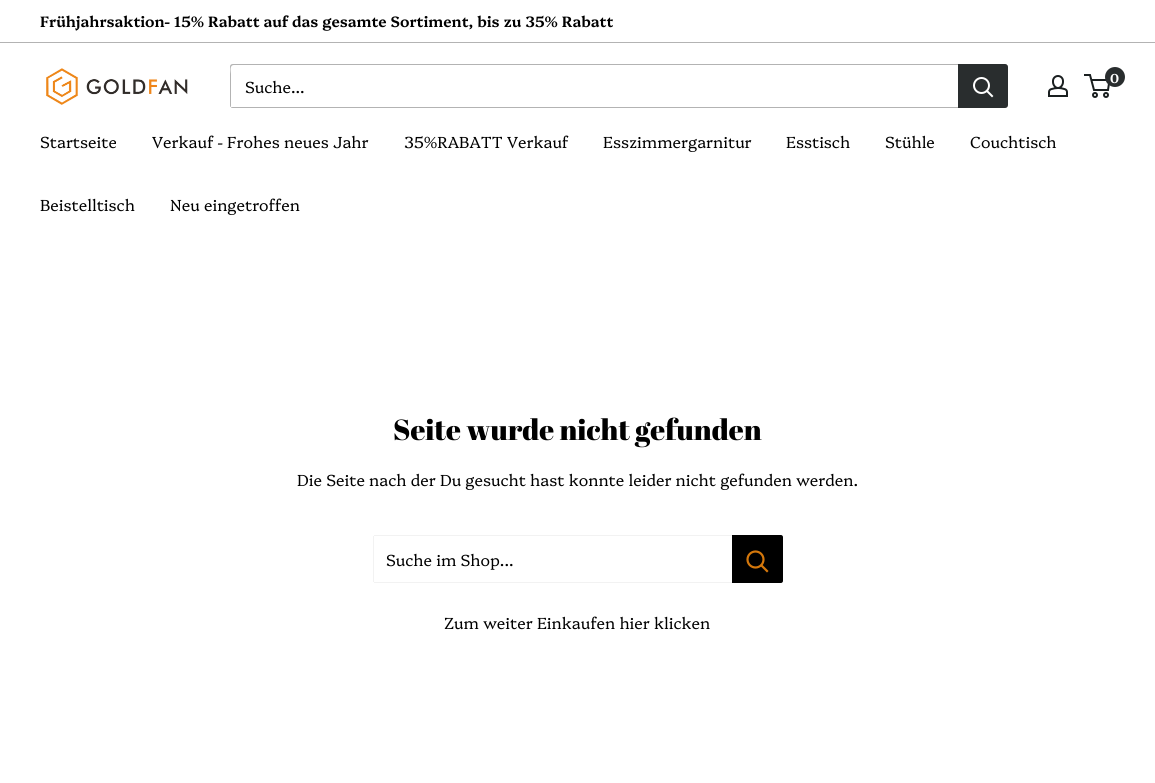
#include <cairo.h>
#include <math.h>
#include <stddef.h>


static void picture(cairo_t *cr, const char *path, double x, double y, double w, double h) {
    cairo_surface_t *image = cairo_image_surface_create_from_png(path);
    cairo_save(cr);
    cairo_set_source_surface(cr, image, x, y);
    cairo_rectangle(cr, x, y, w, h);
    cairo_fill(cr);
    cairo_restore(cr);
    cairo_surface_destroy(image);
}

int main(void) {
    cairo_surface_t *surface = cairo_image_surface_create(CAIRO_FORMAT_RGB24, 1155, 783);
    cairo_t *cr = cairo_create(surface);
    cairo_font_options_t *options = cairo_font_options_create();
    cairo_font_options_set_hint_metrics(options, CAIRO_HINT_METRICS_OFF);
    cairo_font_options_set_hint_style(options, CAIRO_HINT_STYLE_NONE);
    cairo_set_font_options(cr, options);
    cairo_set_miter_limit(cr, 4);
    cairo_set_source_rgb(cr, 1, 1, 1);
    cairo_paint(cr);
    cairo_set_source_rgb(cr, 0.702, 0.702, 0.702);
    cairo_rectangle(cr, 0, 42, 1155, 1);
    cairo_fill(cr);
    cairo_select_font_face(cr, "Platypi SemiBold", CAIRO_FONT_SLANT_NORMAL, CAIRO_FONT_WEIGHT_NORMAL);
    cairo_set_font_size(cr, 15);
    cairo_set_source_rgb(cr, 0, 0, 0);
    cairo_move_to(cr, 40, 27);
    cairo_show_text(cr, "Frühjahrsaktion- 15% Rabatt auf das gesamte Sortiment, bis zu 35% Rabatt");
    picture(cr, "img1.png", 46, 68, 142, 37);
    picture(cr, "img2.png", 1048, 75, 20, 22);
    cairo_arc(cr, 1095, 95, 2, 0, 2 * M_PI);
    cairo_set_source_rgb(cr, 0.102, 0.122, 0.125);
    cairo_stroke(cr);
    cairo_arc(cr, 1106, 95, 2, 0, 2 * M_PI);
    cairo_stroke(cr);
    cairo_new_path(cr);
    cairo_move_to(cr, 1091.5, 80);
    cairo_line_to(cr, 1109.5, 80);
    cairo_line_to(cr, 1108, 90);
    cairo_line_to(cr, 1094, 90);
    cairo_line_to(cr, 1090, 75);
    cairo_line_to(cr, 1084, 75);
    cairo_stroke(cr);
    cairo_set_source_rgb(cr, 0.161, 0.176, 0.18);
    cairo_arc(cr, 1115, 77, 10, 0, 2 * M_PI);
    cairo_fill(cr);
    cairo_set_font_size(cr, 13);
    cairo_set_source_rgb(cr, 1, 1, 1);
    cairo_move_to(cr, 1110, 83);
    cairo_show_text(cr, "0");
    cairo_set_source_rgb(cr, 0.702, 0.702, 0.702);
    cairo_new_path(cr);
    cairo_move_to(cr, 231, 107);
    cairo_curve_to(cr, 231, 108, 232, 108, 233, 108);
    cairo_line_to(cr, 1005, 108);
    cairo_curve_to(cr, 1007, 108, 1008, 107, 1008, 105);
    cairo_line_to(cr, 1008, 67);
    cairo_curve_to(cr, 1008, 66, 1008, 65, 1007, 65);
    cairo_line_to(cr, 1007, 98);
    cairo_curve_to(cr, 1007, 100, 1009, 107, 1004, 107);
    cairo_close_path(cr);
    cairo_fill(cr);
    cairo_new_path(cr);
    cairo_move_to(cr, 234, 65);
    cairo_line_to(cr, 1007, 65);
    cairo_curve_to(cr, 1007, 64, 1006, 64, 1005, 64);
    cairo_line_to(cr, 233, 64);
    cairo_curve_to(cr, 231, 64, 230, 65, 230, 67);
    cairo_line_to(cr, 230, 105);
    cairo_curve_to(cr, 230, 106, 230, 107, 231, 107);
    cairo_line_to(cr, 231, 74);
    cairo_curve_to(cr, 231, 72, 229, 65, 234, 65);
    cairo_close_path(cr);
    cairo_fill(cr);
    cairo_select_font_face(cr, "Platypi Light", CAIRO_FONT_SLANT_NORMAL, CAIRO_FONT_WEIGHT_NORMAL);
    cairo_set_font_size(cr, 16);
    cairo_set_source_rgb(cr, 0, 0, 0);
    cairo_move_to(cr, 245, 93);
    cairo_show_text(cr, "Suche...");
    cairo_set_source_rgb(cr, 0.161, 0.176, 0.18);
    cairo_new_path(cr);
    cairo_move_to(cr, 958, 64);
    cairo_line_to(cr, 1005, 64);
    cairo_curve_to(cr, 1006.5, 64, 1008, 65.5, 1008, 67);
    cairo_line_to(cr, 1008, 105);
    cairo_curve_to(cr, 1008, 106.5, 1006.5, 108, 1005, 108);
    cairo_line_to(cr, 958, 108);
    cairo_close_path(cr);
    cairo_fill(cr);
    cairo_new_path(cr);
    cairo_move_to(cr, 992, 96);
    cairo_line_to(cr, 987, 91);
    cairo_set_source_rgb(cr, 1, 1, 1);
    cairo_set_line_cap(cr, CAIRO_LINE_CAP_SQUARE);
    cairo_stroke(cr);
    cairo_arc(cr, 981.5, 85.5, 7.5, 0, 2 * M_PI);
    cairo_set_line_cap(cr, CAIRO_LINE_CAP_BUTT);
    cairo_stroke(cr);
    cairo_set_source_rgb(cr, 0, 0, 0);
    cairo_move_to(cr, 40, 148);
    cairo_show_text(cr, "Startseite");
    cairo_move_to(cr, 152, 148);
    cairo_show_text(cr, "Verkauf - Frohes neues Jahr");
    cairo_move_to(cr, 404, 148);
    cairo_show_text(cr, "35%RABATT Verkauf");
    cairo_move_to(cr, 603, 148);
    cairo_show_text(cr, "Esszimmergarnitur");
    cairo_move_to(cr, 786, 148);
    cairo_show_text(cr, "Esstisch");
    cairo_move_to(cr, 885, 148);
    cairo_show_text(cr, "Stühle");
    cairo_move_to(cr, 970, 148);
    cairo_show_text(cr, "Couchtisch");
    cairo_move_to(cr, 40, 211);
    cairo_show_text(cr, "Beistelltisch");
    cairo_move_to(cr, 170, 211);
    cairo_show_text(cr, "Neu eingetroffen");
    cairo_select_font_face(cr, "Abril Fatface", CAIRO_FONT_SLANT_NORMAL, CAIRO_FONT_WEIGHT_NORMAL);
    cairo_set_font_size(cr, 29);
    cairo_move_to(cr, 393, 440);
    cairo_show_text(cr, "Seite wurde nicht gefunden");
    cairo_select_font_face(cr, "Platypi Light", CAIRO_FONT_SLANT_NORMAL, CAIRO_FONT_WEIGHT_NORMAL);
    cairo_set_font_size(cr, 16);
    cairo_move_to(cr, 297, 486);
    cairo_show_text(cr, "Die Seite nach der Du gesucht hast konnte leider nicht gefunden werden.");
    cairo_set_source_rgb(cr, 0.949, 0.949, 0.949);
    cairo_rectangle(cr, 374, 535, 358, 1);
    cairo_fill(cr);
    cairo_rectangle(cr, 374, 582, 358, 1);
    cairo_fill(cr);
    cairo_rectangle(cr, 373, 536, 1, 46);
    cairo_fill(cr);
    cairo_set_source_rgb(cr, 0, 0, 0);
    cairo_move_to(cr, 386, 566);
    cairo_show_text(cr, "Suche im Shop...");
    cairo_new_path(cr);
    cairo_move_to(cr, 732, 535);
    cairo_line_to(cr, 781, 535);
    cairo_curve_to(cr, 782, 535, 783, 536, 783, 537);
    cairo_line_to(cr, 783, 581);
    cairo_curve_to(cr, 783, 582, 782, 583, 781, 583);
    cairo_line_to(cr, 732, 583);
    cairo_close_path(cr);
    cairo_fill(cr);
    cairo_new_path(cr);
    cairo_move_to(cr, 767, 571);
    cairo_line_to(cr, 761.5, 565.5);
    cairo_set_source_rgb(cr, 0.831, 0.467, 0.043);
    cairo_set_line_width(cr, 2.2);
    cairo_set_line_cap(cr, CAIRO_LINE_CAP_SQUARE);
    cairo_stroke(cr);
    cairo_arc(cr, 755.5, 559.5, 8, 0, 2 * M_PI);
    cairo_set_line_cap(cr, CAIRO_LINE_CAP_BUTT);
    cairo_stroke(cr);
    cairo_set_source_rgb(cr, 0, 0, 0);
    cairo_move_to(cr, 444, 629);
    cairo_show_text(cr, "Zum weiter Einkaufen hier klicken");
    cairo_surface_write_to_png(surface, "page.png");
    cairo_font_options_destroy(options);
    cairo_destroy(cr);
    cairo_surface_destroy(surface);
    return 0;
}
